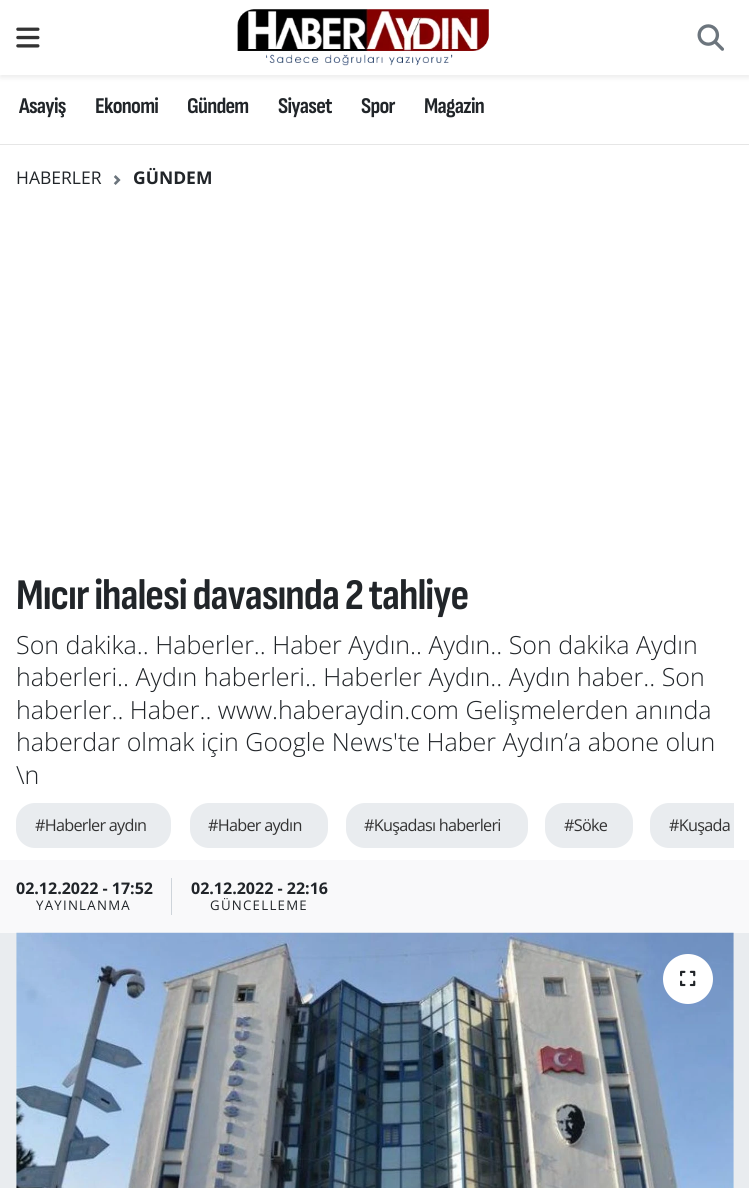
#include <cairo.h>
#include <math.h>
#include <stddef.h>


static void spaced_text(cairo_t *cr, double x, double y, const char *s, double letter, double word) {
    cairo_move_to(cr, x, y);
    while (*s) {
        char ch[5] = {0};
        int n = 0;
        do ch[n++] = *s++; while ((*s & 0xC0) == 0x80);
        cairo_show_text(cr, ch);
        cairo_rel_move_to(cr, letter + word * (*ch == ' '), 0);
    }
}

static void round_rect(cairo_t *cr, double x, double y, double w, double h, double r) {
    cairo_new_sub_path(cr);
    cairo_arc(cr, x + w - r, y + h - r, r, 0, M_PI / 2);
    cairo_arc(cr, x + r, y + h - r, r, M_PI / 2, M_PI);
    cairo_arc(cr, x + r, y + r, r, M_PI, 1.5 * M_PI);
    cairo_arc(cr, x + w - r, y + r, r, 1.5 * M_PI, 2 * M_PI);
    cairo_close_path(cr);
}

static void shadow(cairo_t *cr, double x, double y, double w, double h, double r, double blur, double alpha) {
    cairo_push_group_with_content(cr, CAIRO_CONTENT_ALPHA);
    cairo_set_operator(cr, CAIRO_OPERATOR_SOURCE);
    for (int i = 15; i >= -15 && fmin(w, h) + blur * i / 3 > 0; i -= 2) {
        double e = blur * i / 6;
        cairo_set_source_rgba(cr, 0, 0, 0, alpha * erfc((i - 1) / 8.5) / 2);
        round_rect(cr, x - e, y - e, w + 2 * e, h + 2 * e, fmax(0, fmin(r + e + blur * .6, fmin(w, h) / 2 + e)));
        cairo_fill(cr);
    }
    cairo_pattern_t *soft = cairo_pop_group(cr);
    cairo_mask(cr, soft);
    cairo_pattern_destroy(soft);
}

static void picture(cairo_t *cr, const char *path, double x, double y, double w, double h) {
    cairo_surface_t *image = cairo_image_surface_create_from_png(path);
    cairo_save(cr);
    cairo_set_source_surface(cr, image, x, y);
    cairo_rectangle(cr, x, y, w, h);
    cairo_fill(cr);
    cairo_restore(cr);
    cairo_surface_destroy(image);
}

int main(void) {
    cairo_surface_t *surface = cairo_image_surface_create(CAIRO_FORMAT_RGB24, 749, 1188);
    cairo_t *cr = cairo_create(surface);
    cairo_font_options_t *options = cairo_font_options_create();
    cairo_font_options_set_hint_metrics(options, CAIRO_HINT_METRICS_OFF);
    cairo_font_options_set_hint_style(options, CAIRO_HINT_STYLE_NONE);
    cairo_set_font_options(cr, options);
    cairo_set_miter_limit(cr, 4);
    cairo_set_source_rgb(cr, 0.914, 0.925, 0.937);
    cairo_paint(cr);
    cairo_set_source_rgb(cr, 1, 1, 1);
    cairo_rectangle(cr, 0, 75, 749, 69);
    cairo_fill(cr);
    cairo_set_source_rgb(cr, 0, 0, 0);
    shadow(cr, 0, 3, 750, 75, 0, 2.5, 0.07);
    cairo_set_source_rgb(cr, 1, 1, 1);
    cairo_rectangle(cr, 0, 0, 749, 75);
    cairo_fill(cr);
    picture(cr, "img1.png", 16, 27, 24, 21);
    picture(cr, "img2.png", 237, 9, 252, 57);
    picture(cr, "img3.png", 697, 24, 27, 27);
    cairo_set_source_rgb(cr, 0.902, 0.902, 0.902);
    cairo_rectangle(cr, 0, 144, 749, 1);
    cairo_fill(cr);
    cairo_select_font_face(cr, "Sofia Sans Condensed", CAIRO_FONT_SLANT_NORMAL, CAIRO_FONT_WEIGHT_BOLD);
    cairo_set_font_size(cr, 22.5);
    cairo_set_source_rgb(cr, 0.129, 0.145, 0.161);
    spaced_text(cr, 19, 113, "Asayiş", -0.75, 0);
    spaced_text(cr, 95, 113, "Ekonomi", -0.75, 0);
    spaced_text(cr, 187, 113, "Gündem", -0.75, 0);
    spaced_text(cr, 278, 113, "Siyaset", -0.75, 0);
    spaced_text(cr, 361, 113, "Spor", -0.75, 0);
    spaced_text(cr, 424, 113, "Magazin", -0.75, 0);
    cairo_set_source_rgb(cr, 1, 1, 1);
    cairo_rectangle(cr, 0, 145, 749, 715);
    cairo_fill(cr);
    cairo_select_font_face(cr, "Open Sans", CAIRO_FONT_SLANT_NORMAL, CAIRO_FONT_WEIGHT_NORMAL);
    cairo_set_font_size(cr, 17.5);
    cairo_set_source_rgb(cr, 0.129, 0.145, 0.161);
    cairo_move_to(cr, 16, 184);
    cairo_show_text(cr, "HABERLER");
    picture(cr, "img4.png", 113, 175, 8, 10);
    cairo_select_font_face(cr, "Open Sans", CAIRO_FONT_SLANT_NORMAL, CAIRO_FONT_WEIGHT_BOLD);
    cairo_move_to(cr, 133, 184);
    cairo_show_text(cr, "GÜNDEM");
    cairo_select_font_face(cr, "Sofia Sans Condensed", CAIRO_FONT_SLANT_NORMAL, CAIRO_FONT_WEIGHT_BOLD);
    cairo_set_font_size(cr, 43.75);
    spaced_text(cr, 16, 609, "Mıcır ihalesi davasında 2 tahliye", -1, 0);
    cairo_select_font_face(cr, "Open Sans Light", CAIRO_FONT_SLANT_NORMAL, CAIRO_FONT_WEIGHT_NORMAL);
    cairo_set_font_size(cr, 25);
    cairo_move_to(cr, 16, 654);
    cairo_show_text(cr, "Son dakika.. Haberler.. Haber Aydın.. Aydın.. Son dakika Aydın");
    cairo_move_to(cr, 16, 686);
    cairo_show_text(cr, "haberleri.. Aydın haberleri.. Haberler Aydın.. Aydın haber.. Son");
    cairo_move_to(cr, 16, 719);
    cairo_show_text(cr, "haberler.. Haber.. www.haberaydin.com Gelişmelerden anında");
    cairo_move_to(cr, 16, 751);
    cairo_show_text(cr, "haberdar olmak için Google News'te Haber Aydın’a abone olun");
    cairo_move_to(cr, 16, 784);
    cairo_show_text(cr, "\\n");
    cairo_set_source_rgb(cr, 0.914, 0.925, 0.937);
    round_rect(cr, 16, 803, 155, 45, 19);
    cairo_fill(cr);
    cairo_select_font_face(cr, "Open Sans", CAIRO_FONT_SLANT_NORMAL, CAIRO_FONT_WEIGHT_NORMAL);
    cairo_set_font_size(cr, 16.25);
    cairo_set_source_rgb(cr, 0.2, 0.2, 0.2);
    spaced_text(cr, 35, 831, "#Haberler aydın", -0.75, 0);
    cairo_set_source_rgb(cr, 0.914, 0.925, 0.937);
    round_rect(cr, 190, 803, 138, 45, 19);
    cairo_fill(cr);
    cairo_set_source_rgb(cr, 0.2, 0.2, 0.2);
    spaced_text(cr, 208, 831, "#Haber aydın", -0.75, 0);
    cairo_set_source_rgb(cr, 0.914, 0.925, 0.937);
    round_rect(cr, 346, 803, 182, 45, 19);
    cairo_fill(cr);
    cairo_set_source_rgb(cr, 0.2, 0.2, 0.2);
    spaced_text(cr, 364, 831, "#Kuşadası haberleri", -0.75, 0);
    cairo_set_source_rgb(cr, 0.914, 0.925, 0.937);
    round_rect(cr, 545, 803, 88, 45, 19);
    cairo_fill(cr);
    cairo_set_source_rgb(cr, 0.2, 0.2, 0.2);
    spaced_text(cr, 564, 831, "#Söke", -0.75, 0);
    cairo_set_source_rgb(cr, 0.914, 0.925, 0.937);
    cairo_new_path(cr);
    cairo_move_to(cr, 669, 803);
    cairo_line_to(cr, 734, 803);
    cairo_line_to(cr, 734, 848);
    cairo_line_to(cr, 669, 848);
    cairo_curve_to(cr, 658.5, 848, 650, 839.5, 650, 829);
    cairo_line_to(cr, 650, 822);
    cairo_curve_to(cr, 650, 811.5, 658.5, 803, 669, 803);
    cairo_close_path(cr);
    cairo_fill(cr);
    cairo_set_source_rgb(cr, 0.2, 0.2, 0.2);
    spaced_text(cr, 669, 831, "#Kuşada", -0.75, 0);
    cairo_set_source_rgb(cr, 0.973, 0.976, 0.98);
    cairo_rectangle(cr, 0, 860, 749, 73);
    cairo_fill(cr);
    cairo_set_source_rgb(cr, 0.808, 0.831, 0.855);
    cairo_rectangle(cr, 171, 878, 1, 37);
    cairo_fill(cr);
    cairo_select_font_face(cr, "Open Sans", CAIRO_FONT_SLANT_NORMAL, CAIRO_FONT_WEIGHT_BOLD);
    cairo_set_font_size(cr, 16);
    cairo_set_source_rgb(cr, 0.129, 0.145, 0.161);
    cairo_move_to(cr, 16, 894);
    cairo_show_text(cr, "02.12.2022 - 17:52");
    cairo_select_font_face(cr, "Open Sans", CAIRO_FONT_SLANT_NORMAL, CAIRO_FONT_WEIGHT_NORMAL);
    cairo_set_font_size(cr, 13.25);
    spaced_text(cr, 36, 910, "YAYINLANMA", 1.25, 0);
    cairo_select_font_face(cr, "Open Sans", CAIRO_FONT_SLANT_NORMAL, CAIRO_FONT_WEIGHT_BOLD);
    cairo_set_font_size(cr, 16);
    cairo_move_to(cr, 191, 894);
    cairo_show_text(cr, "02.12.2022 - 22:16");
    cairo_select_font_face(cr, "Open Sans", CAIRO_FONT_SLANT_NORMAL, CAIRO_FONT_WEIGHT_NORMAL);
    cairo_set_font_size(cr, 13.25);
    spaced_text(cr, 210, 910, "GÜNCELLEME", 1.25, 0);
    picture(cr, "img5.png", 16, 932, 718, 256);
    cairo_set_source_rgb(cr, 1, 1, 1);
    cairo_arc(cr, 688, 979, 25, 0, 2 * M_PI);
    cairo_fill(cr);
    picture(cr, "img6.png", 680, 970, 16, 17);
    cairo_surface_write_to_png(surface, "page.png");
    cairo_font_options_destroy(options);
    cairo_destroy(cr);
    cairo_surface_destroy(surface);
    return 0;
}
